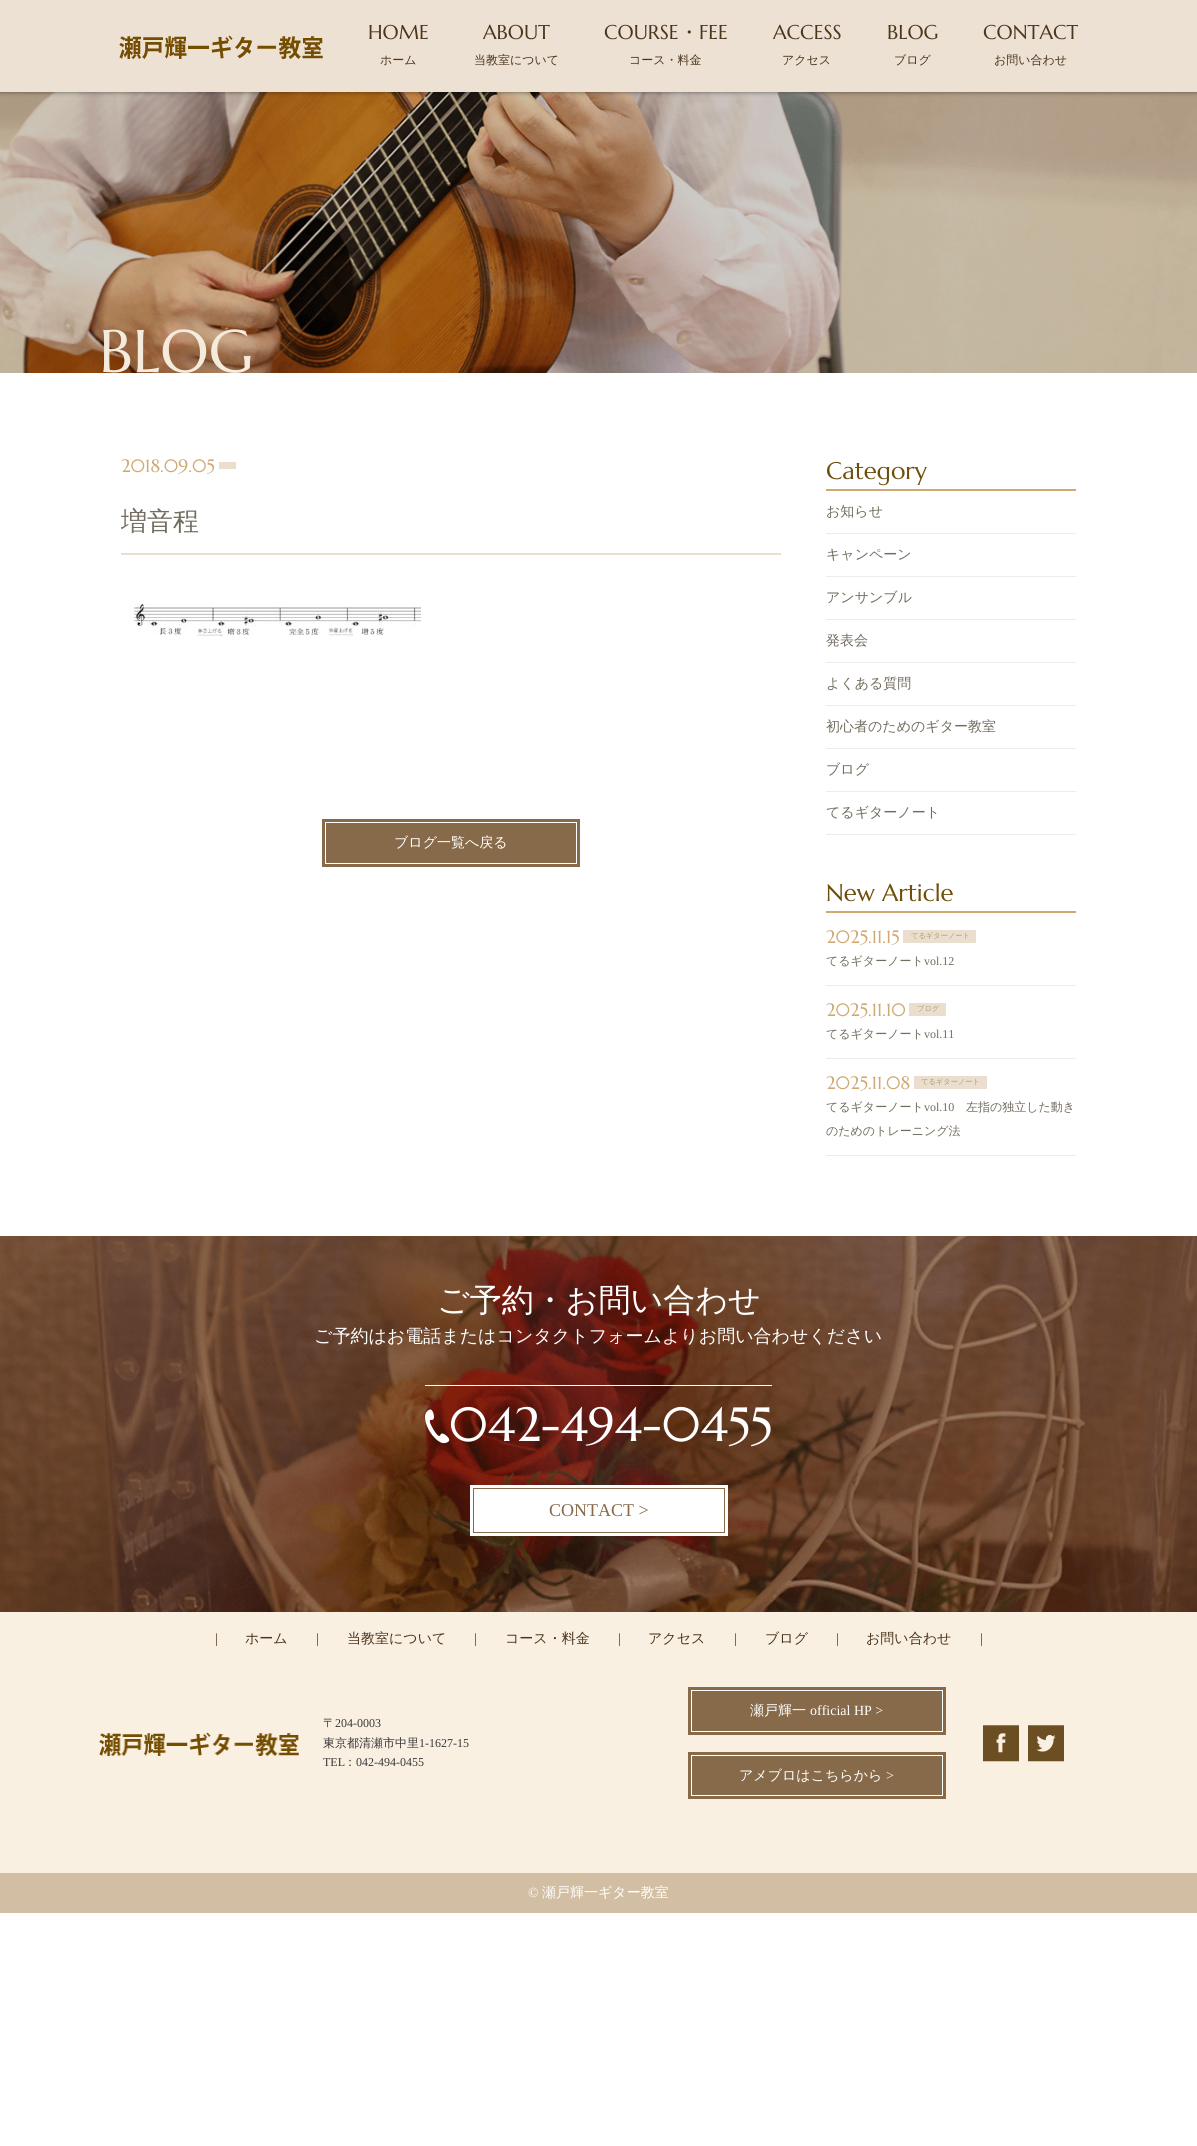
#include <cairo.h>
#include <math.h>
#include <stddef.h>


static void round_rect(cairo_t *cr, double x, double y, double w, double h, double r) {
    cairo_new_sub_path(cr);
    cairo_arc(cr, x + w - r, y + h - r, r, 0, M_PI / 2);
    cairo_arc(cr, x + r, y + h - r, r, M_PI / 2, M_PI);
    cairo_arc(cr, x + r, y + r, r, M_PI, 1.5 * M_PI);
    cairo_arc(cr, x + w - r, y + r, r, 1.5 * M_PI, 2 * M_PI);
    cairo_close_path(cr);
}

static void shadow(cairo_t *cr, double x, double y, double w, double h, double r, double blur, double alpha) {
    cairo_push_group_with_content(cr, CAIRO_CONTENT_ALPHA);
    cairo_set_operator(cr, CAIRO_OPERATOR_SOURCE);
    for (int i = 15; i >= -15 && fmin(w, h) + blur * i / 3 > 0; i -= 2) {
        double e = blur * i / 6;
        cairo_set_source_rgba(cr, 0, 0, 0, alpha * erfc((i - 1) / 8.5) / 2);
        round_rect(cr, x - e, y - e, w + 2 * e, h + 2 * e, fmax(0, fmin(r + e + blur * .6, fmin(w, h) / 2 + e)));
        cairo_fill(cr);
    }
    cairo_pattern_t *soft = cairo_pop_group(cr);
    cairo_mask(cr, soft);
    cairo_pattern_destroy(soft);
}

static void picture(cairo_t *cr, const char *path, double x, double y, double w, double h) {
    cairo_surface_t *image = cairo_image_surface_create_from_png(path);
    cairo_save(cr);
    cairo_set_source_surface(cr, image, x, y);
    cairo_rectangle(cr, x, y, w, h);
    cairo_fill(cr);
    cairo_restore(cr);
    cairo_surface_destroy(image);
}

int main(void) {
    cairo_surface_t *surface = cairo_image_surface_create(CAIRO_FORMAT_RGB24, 1197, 2146);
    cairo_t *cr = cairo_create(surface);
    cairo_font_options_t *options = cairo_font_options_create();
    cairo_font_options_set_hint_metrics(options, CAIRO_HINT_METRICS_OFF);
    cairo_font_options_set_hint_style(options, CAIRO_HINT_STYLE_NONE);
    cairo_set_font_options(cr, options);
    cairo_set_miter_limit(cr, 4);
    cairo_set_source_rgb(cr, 1, 1, 1);
    cairo_paint(cr);
    picture(cr, "img2.png", 0, 92, 1197, 281);
    cairo_set_source_rgb(cr, 0, 0, 0);
    shadow(cr, 0, 0, 1197, 92, 0, 2.5, 0.5);
    cairo_set_source_rgb(cr, 0.929, 0.882, 0.831);
    cairo_rectangle(cr, 0, 0, 1197, 92);
    cairo_fill(cr);
    picture(cr, "img1.png", 119, 35, 204, 24);
    cairo_select_font_face(cr, "Marcellus", CAIRO_FONT_SLANT_NORMAL, CAIRO_FONT_WEIGHT_NORMAL);
    cairo_set_font_size(cr, 20);
    cairo_set_source_rgb(cr, 0.294, 0.208, 0.106);
    cairo_move_to(cr, 368, 39);
    cairo_show_text(cr, "HOME");
    cairo_select_font_face(cr, "WenQuanYi Zen Hei Medium", CAIRO_FONT_SLANT_NORMAL, CAIRO_FONT_WEIGHT_NORMAL);
    cairo_set_font_size(cr, 12);
    cairo_move_to(cr, 380, 64);
    cairo_show_text(cr, "ホーム");
    cairo_select_font_face(cr, "Marcellus", CAIRO_FONT_SLANT_NORMAL, CAIRO_FONT_WEIGHT_NORMAL);
    cairo_set_font_size(cr, 20);
    cairo_move_to(cr, 483, 39);
    cairo_show_text(cr, "ABOUT");
    cairo_select_font_face(cr, "WenQuanYi Zen Hei Medium", CAIRO_FONT_SLANT_NORMAL, CAIRO_FONT_WEIGHT_NORMAL);
    cairo_set_font_size(cr, 12);
    cairo_move_to(cr, 474, 64);
    cairo_show_text(cr, "当教室について");
    cairo_select_font_face(cr, "Marcellus", CAIRO_FONT_SLANT_NORMAL, CAIRO_FONT_WEIGHT_NORMAL);
    cairo_set_font_size(cr, 20);
    cairo_move_to(cr, 604, 39);
    cairo_show_text(cr, "COURSE");
    cairo_select_font_face(cr, "WenQuanYi Zen Hei Medium", CAIRO_FONT_SLANT_NORMAL, CAIRO_FONT_WEIGHT_NORMAL);
    cairo_move_to(cr, 679, 39);
    cairo_show_text(cr, "・");
    cairo_select_font_face(cr, "Marcellus", CAIRO_FONT_SLANT_NORMAL, CAIRO_FONT_WEIGHT_NORMAL);
    cairo_move_to(cr, 699, 39);
    cairo_show_text(cr, "FEE");
    cairo_select_font_face(cr, "WenQuanYi Zen Hei Medium", CAIRO_FONT_SLANT_NORMAL, CAIRO_FONT_WEIGHT_NORMAL);
    cairo_set_font_size(cr, 12);
    cairo_move_to(cr, 629, 64);
    cairo_show_text(cr, "コース・料金");
    cairo_select_font_face(cr, "Marcellus", CAIRO_FONT_SLANT_NORMAL, CAIRO_FONT_WEIGHT_NORMAL);
    cairo_set_font_size(cr, 20);
    cairo_move_to(cr, 773, 39);
    cairo_show_text(cr, "ACCESS");
    cairo_select_font_face(cr, "WenQuanYi Zen Hei Medium", CAIRO_FONT_SLANT_NORMAL, CAIRO_FONT_WEIGHT_NORMAL);
    cairo_set_font_size(cr, 12);
    cairo_move_to(cr, 782, 64);
    cairo_show_text(cr, "アクセス");
    cairo_select_font_face(cr, "Marcellus", CAIRO_FONT_SLANT_NORMAL, CAIRO_FONT_WEIGHT_NORMAL);
    cairo_set_font_size(cr, 20);
    cairo_move_to(cr, 887, 39);
    cairo_show_text(cr, "BLOG");
    cairo_select_font_face(cr, "WenQuanYi Zen Hei Medium", CAIRO_FONT_SLANT_NORMAL, CAIRO_FONT_WEIGHT_NORMAL);
    cairo_set_font_size(cr, 12);
    cairo_move_to(cr, 894, 64);
    cairo_show_text(cr, "ブログ");
    cairo_select_font_face(cr, "Marcellus", CAIRO_FONT_SLANT_NORMAL, CAIRO_FONT_WEIGHT_NORMAL);
    cairo_set_font_size(cr, 20);
    cairo_move_to(cr, 983, 39);
    cairo_show_text(cr, "CONTACT");
    cairo_select_font_face(cr, "WenQuanYi Zen Hei Medium", CAIRO_FONT_SLANT_NORMAL, CAIRO_FONT_WEIGHT_NORMAL);
    cairo_set_font_size(cr, 12);
    cairo_move_to(cr, 994, 64);
    cairo_show_text(cr, "お問い合わせ");
    cairo_select_font_face(cr, "Marcellus", CAIRO_FONT_SLANT_NORMAL, CAIRO_FONT_WEIGHT_NORMAL);
    cairo_set_font_size(cr, 60);
    cairo_set_source_rgb(cr, 0.957, 0.918, 0.867);
    cairo_move_to(cr, 99, 372);
    cairo_show_text(cr, "BLOG");
    cairo_set_font_size(cr, 18);
    cairo_set_source_rgb(cr, 0.812, 0.663, 0.447);
    cairo_move_to(cr, 121, 472);
    cairo_show_text(cr, "2018.09.05");
    cairo_set_source_rgb(cr, 0.922, 0.871, 0.812);
    cairo_rectangle(cr, 219, 462, 17, 7);
    cairo_fill(cr);
    cairo_rectangle(cr, 121, 553, 660, 2);
    cairo_fill(cr);
    cairo_select_font_face(cr, "WenQuanYi Zen Hei Medium", CAIRO_FONT_SLANT_NORMAL, CAIRO_FONT_WEIGHT_NORMAL);
    cairo_set_font_size(cr, 26);
    cairo_set_source_rgb(cr, 0.451, 0.427, 0.373);
    cairo_move_to(cr, 121, 530);
    cairo_show_text(cr, "増音程");
    picture(cr, "img3.png", 129, 603, 292, 35);
    cairo_rectangle(cr, 324, 821, 254, 44);
    cairo_set_source_rgb(cr, 0.529, 0.416, 0.286);
    cairo_set_line_width(cr, 4);
    cairo_stroke(cr);
    cairo_rectangle(cr, 325.5, 822.5, 251, 41);
    cairo_set_source_rgb(cr, 1, 1, 1);
    cairo_set_line_width(cr, 1);
    cairo_stroke(cr);
    cairo_set_source_rgb(cr, 0.529, 0.416, 0.286);
    cairo_rectangle(cr, 326, 823, 250, 40);
    cairo_fill(cr);
    cairo_set_font_size(cr, 14);
    cairo_set_source_rgb(cr, 1, 1, 1);
    cairo_move_to(cr, 394, 847);
    cairo_show_text(cr, "ブログ一覧へ戻る");
    cairo_set_source_rgb(cr, 0.812, 0.663, 0.447);
    cairo_rectangle(cr, 826, 489, 250, 2);
    cairo_fill(cr);
    cairo_select_font_face(cr, "Marcellus", CAIRO_FONT_SLANT_NORMAL, CAIRO_FONT_WEIGHT_NORMAL);
    cairo_set_font_size(cr, 24);
    cairo_set_source_rgb(cr, 0.431, 0.306, 0.039);
    cairo_move_to(cr, 826, 479);
    cairo_show_text(cr, "Category");
    cairo_set_source_rgb(cr, 0.922, 0.922, 0.922);
    cairo_rectangle(cr, 826, 533, 250, 1);
    cairo_fill(cr);
    cairo_select_font_face(cr, "WenQuanYi Zen Hei Medium", CAIRO_FONT_SLANT_NORMAL, CAIRO_FONT_WEIGHT_NORMAL);
    cairo_set_font_size(cr, 14);
    cairo_set_source_rgb(cr, 0.451, 0.427, 0.373);
    cairo_move_to(cr, 826, 516);
    cairo_show_text(cr, "お知らせ");
    cairo_set_source_rgb(cr, 0.922, 0.922, 0.922);
    cairo_rectangle(cr, 826, 576, 250, 1);
    cairo_fill(cr);
    cairo_set_source_rgb(cr, 0.451, 0.427, 0.373);
    cairo_move_to(cr, 826, 559);
    cairo_show_text(cr, "キャンペーン");
    cairo_set_source_rgb(cr, 0.922, 0.922, 0.922);
    cairo_rectangle(cr, 826, 619, 250, 1);
    cairo_fill(cr);
    cairo_set_source_rgb(cr, 0.451, 0.427, 0.373);
    cairo_move_to(cr, 826, 602);
    cairo_show_text(cr, "アンサンブル");
    cairo_set_source_rgb(cr, 0.922, 0.922, 0.922);
    cairo_rectangle(cr, 826, 662, 250, 1);
    cairo_fill(cr);
    cairo_set_source_rgb(cr, 0.451, 0.427, 0.373);
    cairo_move_to(cr, 826, 645);
    cairo_show_text(cr, "発表会");
    cairo_set_source_rgb(cr, 0.922, 0.922, 0.922);
    cairo_rectangle(cr, 826, 705, 250, 1);
    cairo_fill(cr);
    cairo_set_source_rgb(cr, 0.451, 0.427, 0.373);
    cairo_move_to(cr, 826, 688);
    cairo_show_text(cr, "よくある質問");
    cairo_set_source_rgb(cr, 0.922, 0.922, 0.922);
    cairo_rectangle(cr, 826, 748, 250, 1);
    cairo_fill(cr);
    cairo_set_source_rgb(cr, 0.451, 0.427, 0.373);
    cairo_move_to(cr, 826, 731);
    cairo_show_text(cr, "初心者のためのギター教室");
    cairo_set_source_rgb(cr, 0.922, 0.922, 0.922);
    cairo_rectangle(cr, 826, 791, 250, 1);
    cairo_fill(cr);
    cairo_set_source_rgb(cr, 0.451, 0.427, 0.373);
    cairo_move_to(cr, 826, 774);
    cairo_show_text(cr, "ブログ");
    cairo_set_source_rgb(cr, 0.922, 0.922, 0.922);
    cairo_rectangle(cr, 826, 834, 250, 1);
    cairo_fill(cr);
    cairo_set_source_rgb(cr, 0.451, 0.427, 0.373);
    cairo_move_to(cr, 826, 817);
    cairo_show_text(cr, "てるギターノート");
    cairo_set_source_rgb(cr, 0.812, 0.663, 0.447);
    cairo_rectangle(cr, 826, 911, 250, 2);
    cairo_fill(cr);
    cairo_select_font_face(cr, "Marcellus", CAIRO_FONT_SLANT_NORMAL, CAIRO_FONT_WEIGHT_NORMAL);
    cairo_set_font_size(cr, 24);
    cairo_set_source_rgb(cr, 0.431, 0.306, 0.039);
    cairo_move_to(cr, 826, 901);
    cairo_show_text(cr, "New Article");
    cairo_set_source_rgb(cr, 0.922, 0.922, 0.922);
    cairo_rectangle(cr, 826, 985, 250, 1);
    cairo_fill(cr);
    cairo_set_font_size(cr, 18);
    cairo_set_source_rgb(cr, 0.812, 0.663, 0.447);
    cairo_move_to(cr, 826, 943);
    cairo_show_text(cr, "2025.11.15");
    cairo_set_source_rgb(cr, 0.922, 0.871, 0.812);
    cairo_rectangle(cr, 903, 930, 73, 13);
    cairo_fill(cr);
    cairo_select_font_face(cr, "WenQuanYi Zen Hei Medium", CAIRO_FONT_SLANT_NORMAL, CAIRO_FONT_WEIGHT_NORMAL);
    cairo_set_font_size(cr, 7.25);
    cairo_set_source_rgb(cr, 0.671, 0.62, 0.435);
    cairo_move_to(cr, 911, 938);
    cairo_show_text(cr, "てるギターノート");
    cairo_set_font_size(cr, 12);
    cairo_set_source_rgb(cr, 0.451, 0.427, 0.373);
    cairo_move_to(cr, 826, 965);
    cairo_show_text(cr, "てるギターノート");
    cairo_select_font_face(cr, "Liberation Serif", CAIRO_FONT_SLANT_NORMAL, CAIRO_FONT_WEIGHT_NORMAL);
    cairo_move_to(cr, 924, 965);
    cairo_show_text(cr, "vol.12");
    cairo_set_source_rgb(cr, 0.922, 0.922, 0.922);
    cairo_rectangle(cr, 826, 1058, 250, 1);
    cairo_fill(cr);
    cairo_select_font_face(cr, "Marcellus", CAIRO_FONT_SLANT_NORMAL, CAIRO_FONT_WEIGHT_NORMAL);
    cairo_set_font_size(cr, 18);
    cairo_set_source_rgb(cr, 0.812, 0.663, 0.447);
    cairo_move_to(cr, 826, 1016);
    cairo_show_text(cr, "2025.11.10");
    cairo_set_source_rgb(cr, 0.922, 0.871, 0.812);
    cairo_rectangle(cr, 909, 1003, 37, 13);
    cairo_fill(cr);
    cairo_select_font_face(cr, "WenQuanYi Zen Hei Medium", CAIRO_FONT_SLANT_NORMAL, CAIRO_FONT_WEIGHT_NORMAL);
    cairo_set_font_size(cr, 7.25);
    cairo_set_source_rgb(cr, 0.671, 0.62, 0.435);
    cairo_move_to(cr, 917, 1011);
    cairo_show_text(cr, "ブログ");
    cairo_set_font_size(cr, 12);
    cairo_set_source_rgb(cr, 0.451, 0.427, 0.373);
    cairo_move_to(cr, 826, 1038);
    cairo_show_text(cr, "てるギターノート");
    cairo_select_font_face(cr, "Liberation Serif", CAIRO_FONT_SLANT_NORMAL, CAIRO_FONT_WEIGHT_NORMAL);
    cairo_move_to(cr, 924, 1038);
    cairo_show_text(cr, "vol.11");
    cairo_set_source_rgb(cr, 0.922, 0.922, 0.922);
    cairo_rectangle(cr, 826, 1155, 250, 1);
    cairo_fill(cr);
    cairo_select_font_face(cr, "Marcellus", CAIRO_FONT_SLANT_NORMAL, CAIRO_FONT_WEIGHT_NORMAL);
    cairo_set_font_size(cr, 18);
    cairo_set_source_rgb(cr, 0.812, 0.663, 0.447);
    cairo_move_to(cr, 826, 1089);
    cairo_show_text(cr, "2025.11.08");
    cairo_set_source_rgb(cr, 0.922, 0.871, 0.812);
    cairo_rectangle(cr, 914, 1076, 73, 13);
    cairo_fill(cr);
    cairo_select_font_face(cr, "WenQuanYi Zen Hei Medium", CAIRO_FONT_SLANT_NORMAL, CAIRO_FONT_WEIGHT_NORMAL);
    cairo_set_font_size(cr, 7.25);
    cairo_set_source_rgb(cr, 0.671, 0.62, 0.435);
    cairo_move_to(cr, 921, 1084);
    cairo_show_text(cr, "てるギターノート");
    cairo_set_font_size(cr, 12);
    cairo_set_source_rgb(cr, 0.451, 0.427, 0.373);
    cairo_move_to(cr, 826, 1111);
    cairo_show_text(cr, "てるギターノート");
    cairo_select_font_face(cr, "Liberation Serif", CAIRO_FONT_SLANT_NORMAL, CAIRO_FONT_WEIGHT_NORMAL);
    cairo_move_to(cr, 924, 1111);
    cairo_show_text(cr, "vol.10");
    cairo_select_font_face(cr, "WenQuanYi Zen Hei Medium", CAIRO_FONT_SLANT_NORMAL, CAIRO_FONT_WEIGHT_NORMAL);
    cairo_move_to(cr, 966, 1111);
    cairo_show_text(cr, "左指の独立した動き");
    cairo_move_to(cr, 826, 1135);
    cairo_show_text(cr, "のためのトレーニング法");
    picture(cr, "img4.png", 0, 1236, 1197, 376);
    cairo_set_font_size(cr, 32);
    cairo_set_source_rgb(cr, 1, 1, 1);
    cairo_move_to(cr, 437, 1311);
    cairo_show_text(cr, "ご予約・お問い合わせ");
    cairo_set_font_size(cr, 18);
    cairo_move_to(cr, 314, 1342);
    cairo_show_text(cr, "ご予約はお電話またはコンタクトフォームよりお問い合わせください");
    cairo_rectangle(cr, 425, 1385, 347, 1);
    cairo_fill(cr);
    picture(cr, "img5.png", 425, 1409, 25, 35);
    cairo_select_font_face(cr, "Marcellus", CAIRO_FONT_SLANT_NORMAL, CAIRO_FONT_WEIGHT_NORMAL);
    cairo_set_font_size(cr, 48);
    cairo_move_to(cr, 449, 1441);
    cairo_show_text(cr, "042-494-0455");
    cairo_rectangle(cr, 472, 1487, 254, 47);
    cairo_set_line_width(cr, 4);
    cairo_stroke(cr);
    cairo_rectangle(cr, 473.5, 1488.5, 251, 44);
    cairo_set_source_rgb(cr, 0.529, 0.416, 0.286);
    cairo_set_line_width(cr, 1);
    cairo_stroke(cr);
    cairo_set_source_rgb(cr, 1, 1, 1);
    cairo_rectangle(cr, 474, 1489, 250, 43);
    cairo_fill(cr);
    cairo_select_font_face(cr, "Liberation Serif", CAIRO_FONT_SLANT_NORMAL, CAIRO_FONT_WEIGHT_NORMAL);
    cairo_set_font_size(cr, 18);
    cairo_set_source_rgb(cr, 0.529, 0.416, 0.286);
    cairo_move_to(cr, 549, 1516);
    cairo_show_text(cr, "CONTACT >");
    cairo_set_source_rgb(cr, 0.98, 0.941, 0.886);
    cairo_rectangle(cr, 0, 1612, 1197, 261);
    cairo_fill(cr);
    cairo_set_font_size(cr, 14);
    cairo_set_source_rgb(cr, 0.294, 0.208, 0.106);
    cairo_move_to(cr, 215, 1643);
    cairo_show_text(cr, "|");
    cairo_select_font_face(cr, "WenQuanYi Zen Hei Medium", CAIRO_FONT_SLANT_NORMAL, CAIRO_FONT_WEIGHT_NORMAL);
    cairo_move_to(cr, 245, 1643);
    cairo_show_text(cr, "ホーム");
    cairo_select_font_face(cr, "Liberation Serif", CAIRO_FONT_SLANT_NORMAL, CAIRO_FONT_WEIGHT_NORMAL);
    cairo_move_to(cr, 316, 1643);
    cairo_show_text(cr, "|");
    cairo_select_font_face(cr, "WenQuanYi Zen Hei Medium", CAIRO_FONT_SLANT_NORMAL, CAIRO_FONT_WEIGHT_NORMAL);
    cairo_move_to(cr, 347, 1643);
    cairo_show_text(cr, "当教室について");
    cairo_select_font_face(cr, "Liberation Serif", CAIRO_FONT_SLANT_NORMAL, CAIRO_FONT_WEIGHT_NORMAL);
    cairo_move_to(cr, 474, 1643);
    cairo_show_text(cr, "|");
    cairo_select_font_face(cr, "WenQuanYi Zen Hei Medium", CAIRO_FONT_SLANT_NORMAL, CAIRO_FONT_WEIGHT_NORMAL);
    cairo_move_to(cr, 505, 1643);
    cairo_show_text(cr, "コース・料金");
    cairo_select_font_face(cr, "Liberation Serif", CAIRO_FONT_SLANT_NORMAL, CAIRO_FONT_WEIGHT_NORMAL);
    cairo_move_to(cr, 618, 1643);
    cairo_show_text(cr, "|");
    cairo_select_font_face(cr, "WenQuanYi Zen Hei Medium", CAIRO_FONT_SLANT_NORMAL, CAIRO_FONT_WEIGHT_NORMAL);
    cairo_move_to(cr, 648, 1643);
    cairo_show_text(cr, "アクセス");
    cairo_select_font_face(cr, "Liberation Serif", CAIRO_FONT_SLANT_NORMAL, CAIRO_FONT_WEIGHT_NORMAL);
    cairo_move_to(cr, 734, 1643);
    cairo_show_text(cr, "|");
    cairo_select_font_face(cr, "WenQuanYi Zen Hei Medium", CAIRO_FONT_SLANT_NORMAL, CAIRO_FONT_WEIGHT_NORMAL);
    cairo_move_to(cr, 765, 1643);
    cairo_show_text(cr, "ブログ");
    cairo_select_font_face(cr, "Liberation Serif", CAIRO_FONT_SLANT_NORMAL, CAIRO_FONT_WEIGHT_NORMAL);
    cairo_move_to(cr, 836, 1643);
    cairo_show_text(cr, "|");
    cairo_select_font_face(cr, "WenQuanYi Zen Hei Medium", CAIRO_FONT_SLANT_NORMAL, CAIRO_FONT_WEIGHT_NORMAL);
    cairo_move_to(cr, 866, 1643);
    cairo_show_text(cr, "お問い合わせ");
    cairo_select_font_face(cr, "Liberation Serif", CAIRO_FONT_SLANT_NORMAL, CAIRO_FONT_WEIGHT_NORMAL);
    cairo_move_to(cr, 980, 1643);
    cairo_show_text(cr, "|");
    picture(cr, "img6.png", 99, 1732, 200, 24);
    cairo_select_font_face(cr, "WenQuanYi Zen Hei Medium", CAIRO_FONT_SLANT_NORMAL, CAIRO_FONT_WEIGHT_NORMAL);
    cairo_set_font_size(cr, 12);
    cairo_set_source_rgb(cr, 0.22, 0.22, 0.22);
    cairo_move_to(cr, 323, 1727);
    cairo_show_text(cr, "〒");
    cairo_select_font_face(cr, "Liberation Serif", CAIRO_FONT_SLANT_NORMAL, CAIRO_FONT_WEIGHT_NORMAL);
    cairo_move_to(cr, 335, 1727);
    cairo_show_text(cr, "204-0003");
    cairo_select_font_face(cr, "WenQuanYi Zen Hei Medium", CAIRO_FONT_SLANT_NORMAL, CAIRO_FONT_WEIGHT_NORMAL);
    cairo_move_to(cr, 323, 1747);
    cairo_show_text(cr, "東京都清瀬市中里");
    cairo_select_font_face(cr, "Liberation Serif", CAIRO_FONT_SLANT_NORMAL, CAIRO_FONT_WEIGHT_NORMAL);
    cairo_move_to(cr, 419, 1747);
    cairo_show_text(cr, "1-1627-15");
    cairo_move_to(cr, 323, 1766);
    cairo_show_text(cr, "TEL");
    cairo_select_font_face(cr, "WenQuanYi Zen Hei Medium", CAIRO_FONT_SLANT_NORMAL, CAIRO_FONT_WEIGHT_NORMAL);
    cairo_move_to(cr, 344, 1766);
    cairo_show_text(cr, "：");
    cairo_select_font_face(cr, "Liberation Serif", CAIRO_FONT_SLANT_NORMAL, CAIRO_FONT_WEIGHT_NORMAL);
    cairo_move_to(cr, 356, 1766);
    cairo_show_text(cr, "042-494-0455");
    cairo_rectangle(cr, 690, 1689, 254, 44);
    cairo_set_source_rgb(cr, 0.529, 0.416, 0.286);
    cairo_set_line_width(cr, 4);
    cairo_stroke(cr);
    cairo_rectangle(cr, 691.5, 1690.5, 251, 41);
    cairo_set_source_rgb(cr, 1, 1, 1);
    cairo_set_line_width(cr, 1);
    cairo_stroke(cr);
    cairo_set_source_rgb(cr, 0.529, 0.416, 0.286);
    cairo_rectangle(cr, 692, 1691, 250, 40);
    cairo_fill(cr);
    cairo_select_font_face(cr, "WenQuanYi Zen Hei Medium", CAIRO_FONT_SLANT_NORMAL, CAIRO_FONT_WEIGHT_NORMAL);
    cairo_set_font_size(cr, 14);
    cairo_set_source_rgb(cr, 1, 1, 1);
    cairo_move_to(cr, 750, 1715);
    cairo_show_text(cr, "瀬戸輝一");
    cairo_select_font_face(cr, "Liberation Serif", CAIRO_FONT_SLANT_NORMAL, CAIRO_FONT_WEIGHT_NORMAL);
    cairo_move_to(cr, 810, 1715);
    cairo_show_text(cr, "official HP >");
    cairo_rectangle(cr, 690, 1754, 254, 43);
    cairo_set_source_rgb(cr, 0.529, 0.416, 0.286);
    cairo_set_line_width(cr, 4);
    cairo_stroke(cr);
    cairo_rectangle(cr, 691.5, 1755.5, 251, 40);
    cairo_set_source_rgb(cr, 1, 1, 1);
    cairo_set_line_width(cr, 1);
    cairo_stroke(cr);
    cairo_set_source_rgb(cr, 0.529, 0.416, 0.286);
    cairo_rectangle(cr, 692, 1756, 250, 39);
    cairo_fill(cr);
    cairo_select_font_face(cr, "WenQuanYi Zen Hei Medium", CAIRO_FONT_SLANT_NORMAL, CAIRO_FONT_WEIGHT_NORMAL);
    cairo_set_source_rgb(cr, 1, 1, 1);
    cairo_move_to(cr, 739, 1780);
    cairo_show_text(cr, "アメブロはこちらから");
    cairo_select_font_face(cr, "Liberation Serif", CAIRO_FONT_SLANT_NORMAL, CAIRO_FONT_WEIGHT_NORMAL);
    cairo_move_to(cr, 886, 1780);
    cairo_show_text(cr, ">");
    picture(cr, "img7.png", 983, 1725, 36, 37);
    picture(cr, "img8.png", 1028, 1725, 36, 37);
    cairo_set_source_rgb(cr, 0.824, 0.745, 0.635);
    cairo_rectangle(cr, 0, 1873, 1197, 40);
    cairo_fill(cr);
    cairo_set_source_rgb(cr, 1, 1, 1);
    cairo_move_to(cr, 528, 1897);
    cairo_show_text(cr, "©");
    cairo_select_font_face(cr, "WenQuanYi Zen Hei Medium", CAIRO_FONT_SLANT_NORMAL, CAIRO_FONT_WEIGHT_NORMAL);
    cairo_move_to(cr, 542, 1897);
    cairo_show_text(cr, "瀬戸輝一ギター教室");
    cairo_surface_write_to_png(surface, "page.png");
    cairo_font_options_destroy(options);
    cairo_destroy(cr);
    cairo_surface_destroy(surface);
    return 0;
}
